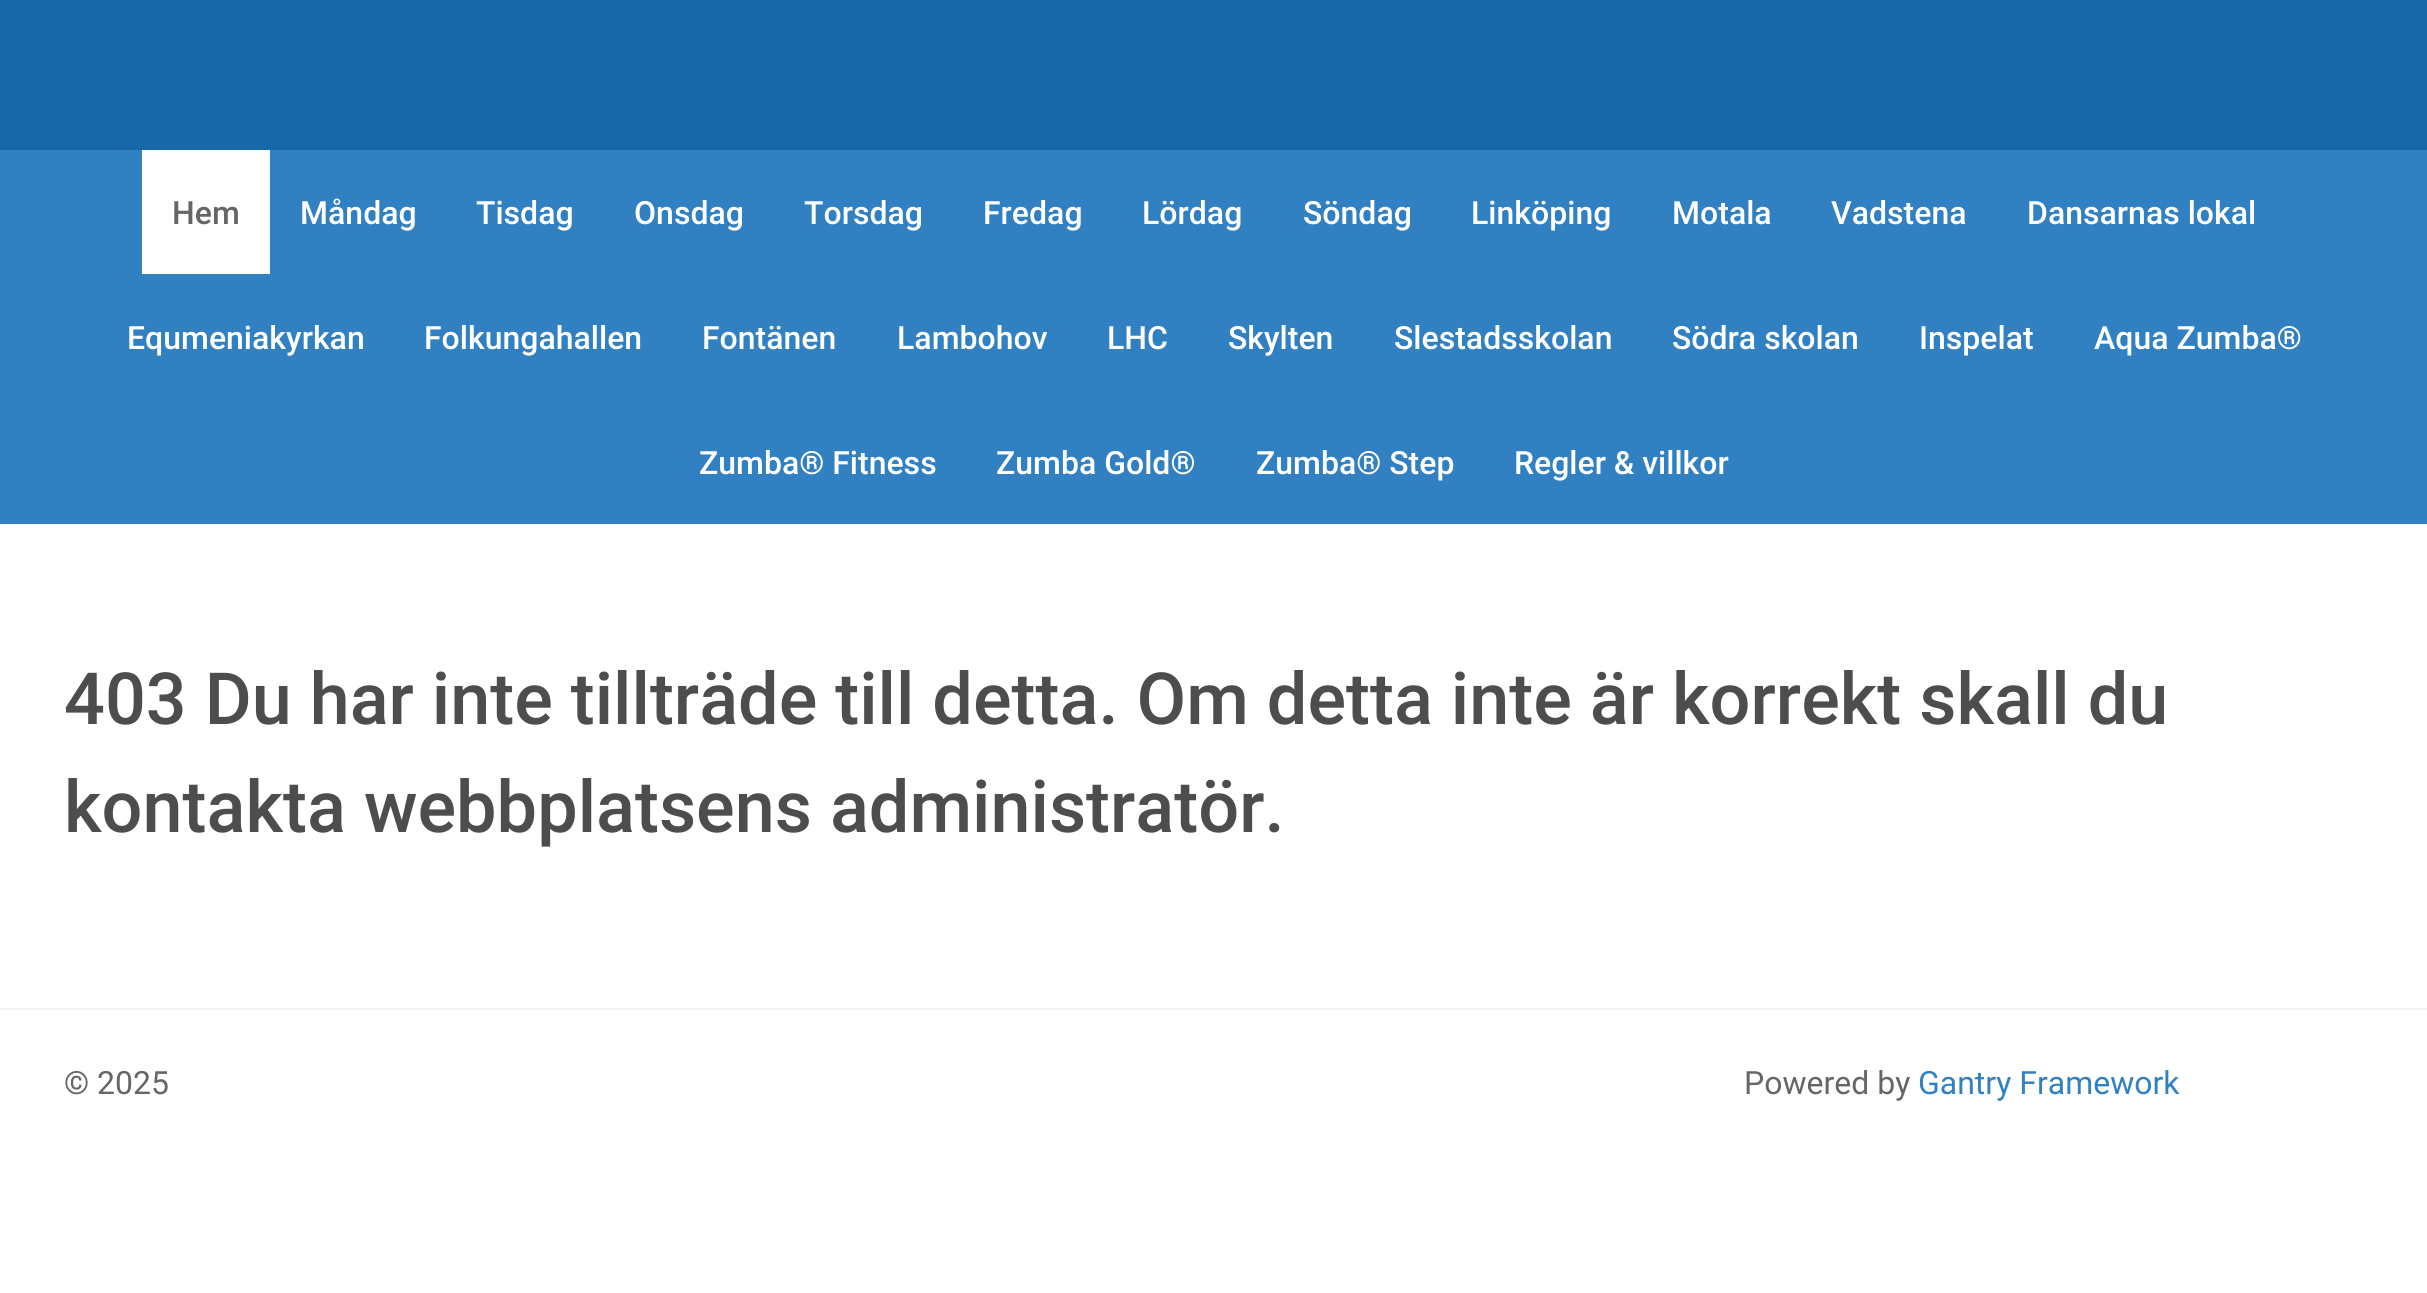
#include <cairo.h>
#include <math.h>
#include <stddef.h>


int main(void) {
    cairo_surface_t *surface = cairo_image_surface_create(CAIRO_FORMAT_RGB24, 2427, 1293);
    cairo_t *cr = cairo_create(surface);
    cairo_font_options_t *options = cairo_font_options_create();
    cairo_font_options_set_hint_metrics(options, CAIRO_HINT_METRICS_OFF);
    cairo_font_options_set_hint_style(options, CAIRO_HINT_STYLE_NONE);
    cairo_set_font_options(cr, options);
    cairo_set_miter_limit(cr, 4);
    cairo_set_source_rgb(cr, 1, 1, 1);
    cairo_paint(cr);
    cairo_set_source_rgb(cr, 0.094, 0.404, 0.663);
    cairo_rectangle(cr, 0, 0, 2427, 150);
    cairo_fill(cr);
    cairo_set_source_rgb(cr, 0.192, 0.502, 0.761);
    cairo_rectangle(cr, 0, 150, 2427, 374);
    cairo_fill(cr);
    cairo_set_source_rgb(cr, 1, 1, 1);
    cairo_rectangle(cr, 142, 150, 128, 124);
    cairo_fill(cr);
    cairo_select_font_face(cr, "Roboto Medium", CAIRO_FONT_SLANT_NORMAL, CAIRO_FONT_WEIGHT_NORMAL);
    cairo_set_font_size(cr, 32);
    cairo_set_source_rgb(cr, 0.4, 0.4, 0.4);
    cairo_move_to(cr, 172, 224);
    cairo_show_text(cr, "Hem");
    cairo_set_source_rgb(cr, 1, 1, 1);
    cairo_move_to(cr, 300, 224);
    cairo_show_text(cr, "Måndag");
    cairo_move_to(cr, 476, 224);
    cairo_show_text(cr, "Tisdag");
    cairo_move_to(cr, 634, 224);
    cairo_show_text(cr, "Onsdag");
    cairo_move_to(cr, 804, 224);
    cairo_show_text(cr, "Torsdag");
    cairo_move_to(cr, 983, 224);
    cairo_show_text(cr, "Fredag");
    cairo_move_to(cr, 1142, 224);
    cairo_show_text(cr, "Lördag");
    cairo_move_to(cr, 1303, 224);
    cairo_show_text(cr, "Söndag");
    cairo_move_to(cr, 1471, 224);
    cairo_show_text(cr, "Linköping");
    cairo_move_to(cr, 1672, 224);
    cairo_show_text(cr, "Motala");
    cairo_move_to(cr, 1831, 224);
    cairo_show_text(cr, "Vadstena");
    cairo_move_to(cr, 2027, 224);
    cairo_show_text(cr, "Dansarnas lokal");
    cairo_move_to(cr, 127, 349);
    cairo_show_text(cr, "Equmeniakyrkan");
    cairo_move_to(cr, 424, 349);
    cairo_show_text(cr, "Folkungahallen");
    cairo_move_to(cr, 702, 349);
    cairo_show_text(cr, "Fontänen");
    cairo_move_to(cr, 897, 349);
    cairo_show_text(cr, "Lambohov");
    cairo_move_to(cr, 1107, 349);
    cairo_show_text(cr, "LHC");
    cairo_move_to(cr, 1228, 349);
    cairo_show_text(cr, "Skylten");
    cairo_move_to(cr, 1394, 349);
    cairo_show_text(cr, "Slestadsskolan");
    cairo_move_to(cr, 1672, 349);
    cairo_show_text(cr, "Södra skolan");
    cairo_move_to(cr, 1919, 349);
    cairo_show_text(cr, "Inspelat");
    cairo_move_to(cr, 2094, 349);
    cairo_show_text(cr, "Aqua Zumba®");
    cairo_move_to(cr, 699, 474);
    cairo_show_text(cr, "Zumba® Fitness");
    cairo_move_to(cr, 996, 474);
    cairo_show_text(cr, "Zumba Gold®");
    cairo_move_to(cr, 1256, 474);
    cairo_show_text(cr, "Zumba® Step");
    cairo_move_to(cr, 1514, 474);
    cairo_show_text(cr, "Regler & villkor");
    cairo_set_font_size(cr, 72);
    cairo_set_source_rgb(cr, 0.302, 0.302, 0.302);
    cairo_move_to(cr, 64, 724);
    cairo_show_text(cr, "403 Du har inte tillträde till detta. Om detta inte är korrekt skall du");
    cairo_move_to(cr, 64, 832);
    cairo_show_text(cr, "kontakta webbplatsens administratör.");
    cairo_set_source_rgb(cr, 0.949, 0.949, 0.949);
    cairo_rectangle(cr, 0, 1008, 2427, 2);
    cairo_fill(cr);
    cairo_select_font_face(cr, "Roboto", CAIRO_FONT_SLANT_NORMAL, CAIRO_FONT_WEIGHT_NORMAL);
    cairo_set_font_size(cr, 32);
    cairo_set_source_rgb(cr, 0.4, 0.4, 0.4);
    cairo_move_to(cr, 64, 1094);
    cairo_show_text(cr, "© 2025");
    cairo_move_to(cr, 1744, 1094);
    cairo_show_text(cr, "Powered by");
    cairo_set_source_rgb(cr, 0.192, 0.502, 0.761);
    cairo_move_to(cr, 1918, 1094);
    cairo_show_text(cr, "Gantry Framework");
    cairo_surface_write_to_png(surface, "page.png");
    cairo_font_options_destroy(options);
    cairo_destroy(cr);
    cairo_surface_destroy(surface);
    return 0;
}
